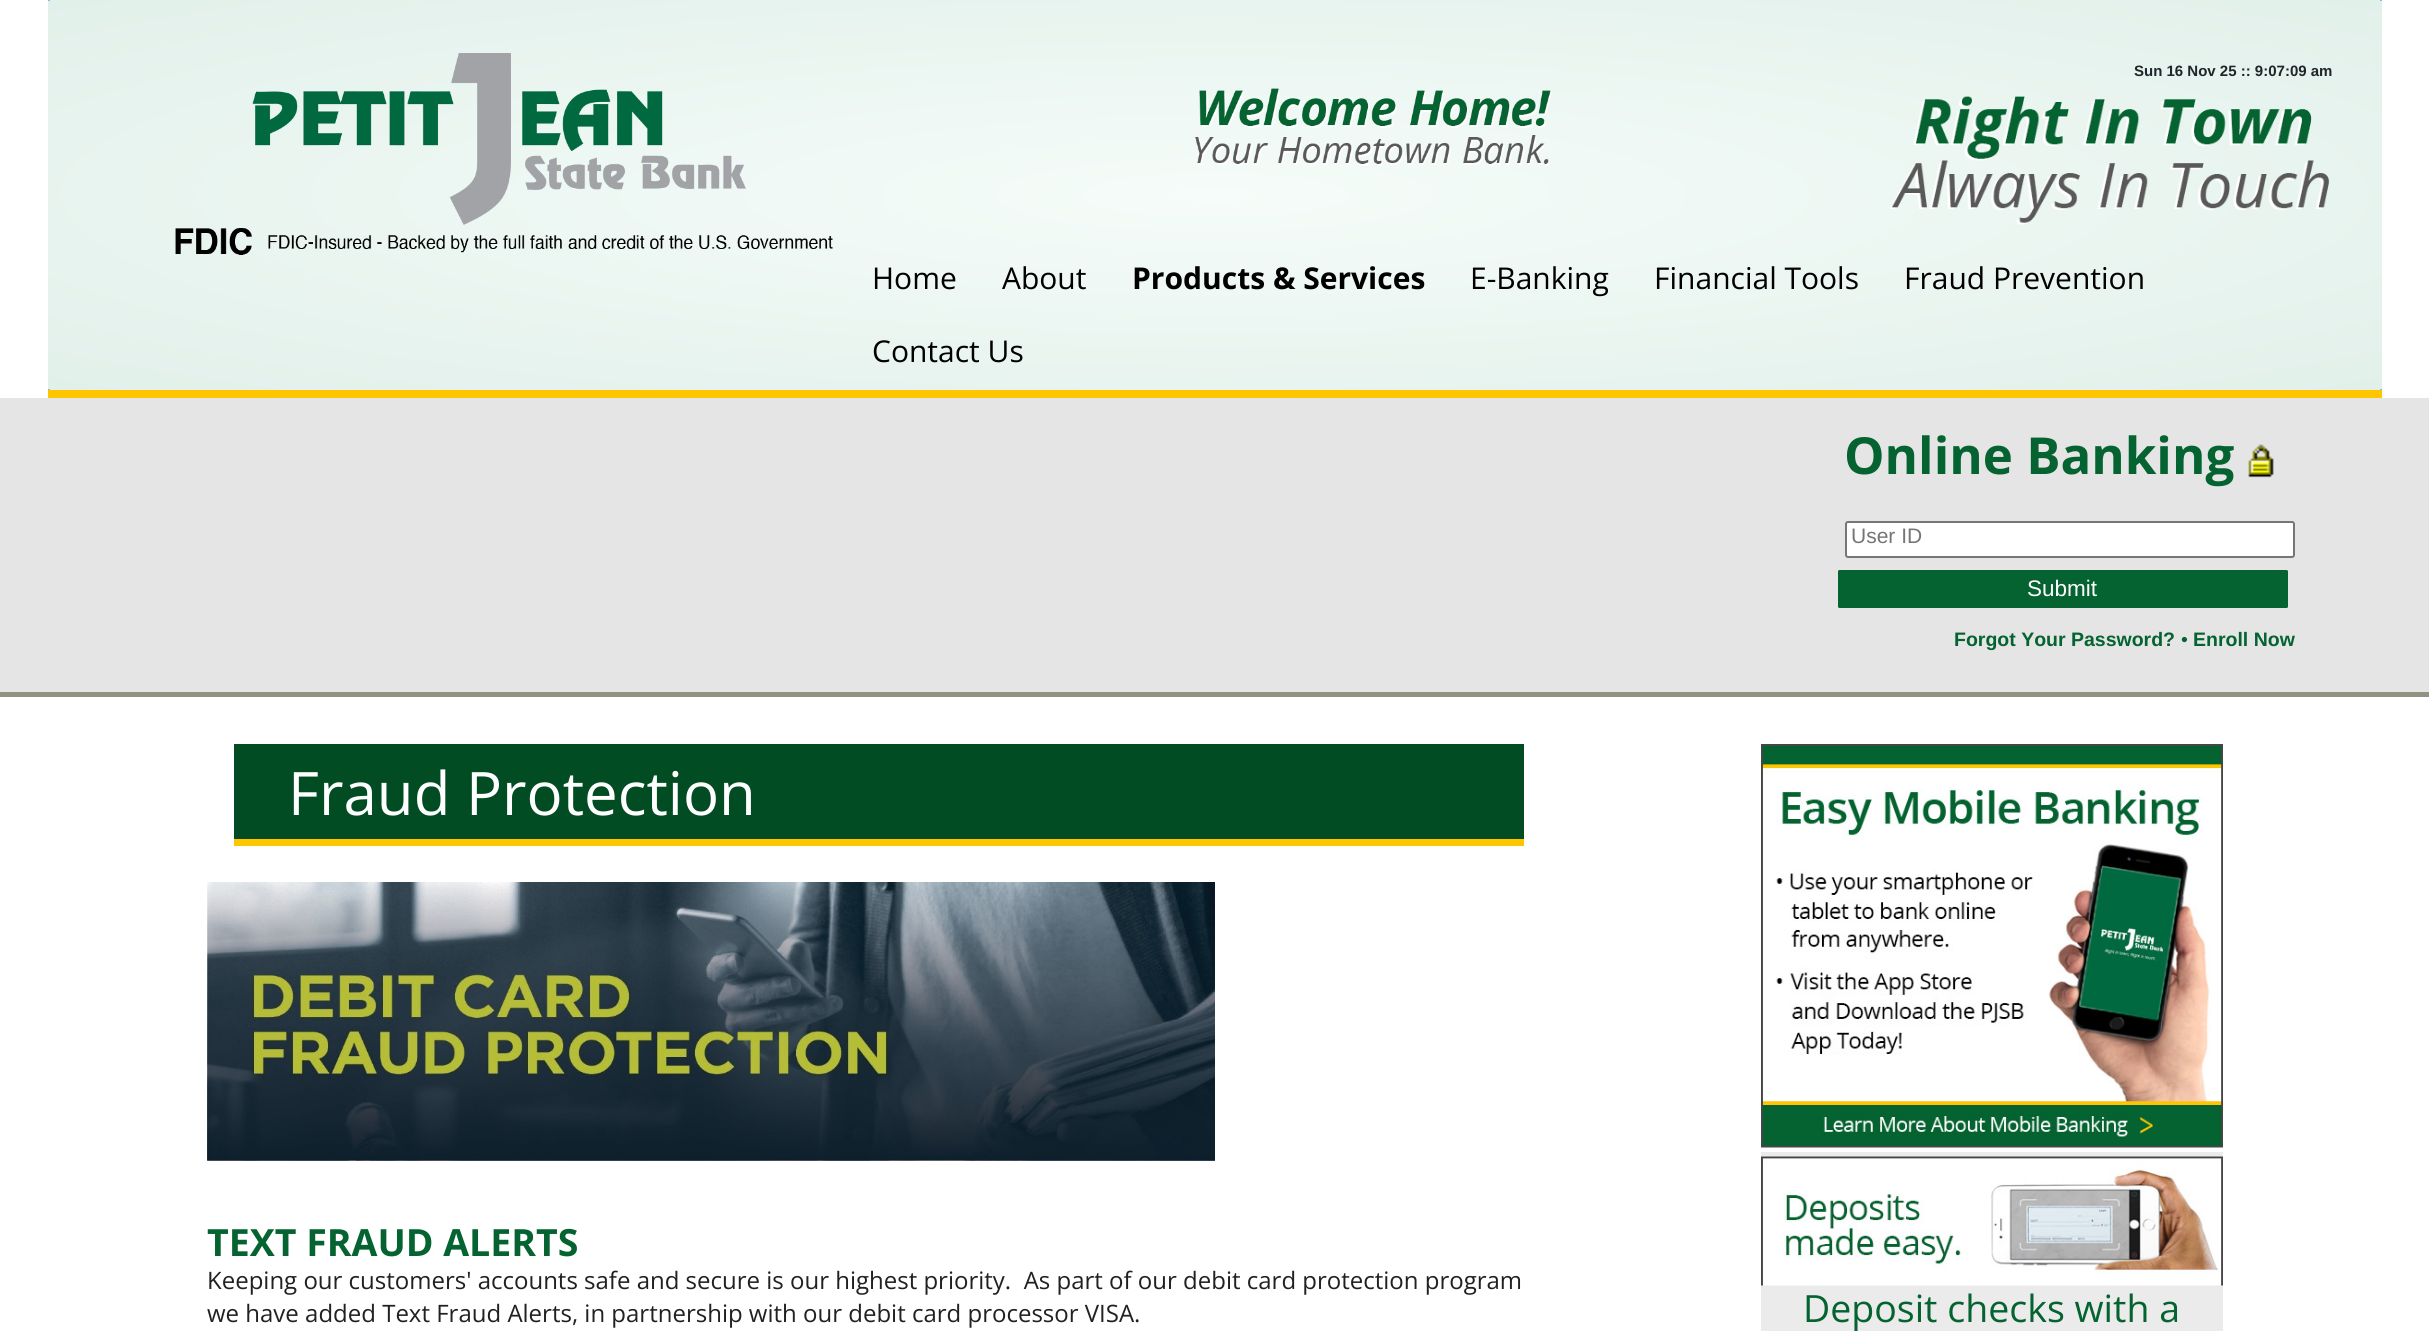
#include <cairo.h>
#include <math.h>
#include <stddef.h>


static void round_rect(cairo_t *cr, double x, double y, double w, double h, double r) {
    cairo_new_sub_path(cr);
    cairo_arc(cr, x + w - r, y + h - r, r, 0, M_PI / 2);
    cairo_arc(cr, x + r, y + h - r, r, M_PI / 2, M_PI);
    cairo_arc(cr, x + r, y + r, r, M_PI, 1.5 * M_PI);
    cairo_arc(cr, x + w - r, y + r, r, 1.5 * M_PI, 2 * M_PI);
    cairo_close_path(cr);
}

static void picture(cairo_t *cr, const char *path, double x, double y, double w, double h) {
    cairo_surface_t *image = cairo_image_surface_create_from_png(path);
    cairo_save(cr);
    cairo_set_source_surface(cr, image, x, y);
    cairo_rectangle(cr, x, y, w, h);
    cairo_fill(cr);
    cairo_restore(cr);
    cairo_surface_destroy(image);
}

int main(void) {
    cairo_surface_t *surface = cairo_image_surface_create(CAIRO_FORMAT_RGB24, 2429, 1331);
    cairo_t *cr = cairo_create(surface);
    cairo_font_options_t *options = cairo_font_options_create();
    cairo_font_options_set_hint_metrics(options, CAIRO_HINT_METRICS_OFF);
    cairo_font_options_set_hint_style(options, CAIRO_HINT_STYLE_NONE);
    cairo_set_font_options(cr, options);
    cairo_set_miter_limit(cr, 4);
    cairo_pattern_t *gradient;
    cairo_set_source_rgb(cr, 1, 1, 1);
    cairo_paint(cr);
    gradient = cairo_pattern_create_radial(0, 0, 0, 0, 0, 1);
    cairo_pattern_set_matrix(gradient, &(cairo_matrix_t){1.0 / 1650, 0, 0, 1.0 / 276, -1.0 * 1215 / 1650, -1.0 * 195 / 276});
    cairo_pattern_add_color_stop_rgba(gradient, 0, 0.961, 0.988, 0.976, 1);
    cairo_pattern_add_color_stop_rgba(gradient, 1, 0.886, 0.941, 0.918, 1);
    cairo_pattern_add_color_stop_rgba(gradient, 1, 0.49, 0.725, 0.91, 1);
    cairo_set_source(cr, gradient);
    cairo_pattern_destroy(gradient);
    cairo_rectangle(cr, 48, 0, 2334, 390);
    cairo_fill(cr);
    picture(cr, "img1.png", 175, 53, 658, 202);
    cairo_set_source_rgb(cr, 1, 0.776, 0);
    cairo_rectangle(cr, 48, 390, 2334, 8);
    cairo_fill(cr);
    cairo_select_font_face(cr, "Liberation Sans", CAIRO_FONT_SLANT_NORMAL, CAIRO_FONT_WEIGHT_BOLD);
    cairo_set_font_size(cr, 15);
    cairo_set_source_rgb(cr, 0.129, 0.145, 0.161);
    cairo_move_to(cr, 2134, 76);
    cairo_show_text(cr, "Sun 16 Nov 25 :: 9:07:09 am");
    picture(cr, "img2.png", 1195, 88, 357, 78);
    picture(cr, "img3.png", 1890, 96, 439, 129);
    cairo_select_font_face(cr, "Open Sans", CAIRO_FONT_SLANT_NORMAL, CAIRO_FONT_WEIGHT_NORMAL);
    cairo_set_font_size(cr, 30);
    cairo_set_source_rgb(cr, 0, 0, 0);
    cairo_move_to(cr, 872, 289);
    cairo_show_text(cr, "Home");
    cairo_move_to(cr, 1002, 289);
    cairo_show_text(cr, "About");
    cairo_select_font_face(cr, "Open Sans", CAIRO_FONT_SLANT_NORMAL, CAIRO_FONT_WEIGHT_BOLD);
    cairo_move_to(cr, 1132, 289);
    cairo_show_text(cr, "Products & Services");
    cairo_select_font_face(cr, "Open Sans", CAIRO_FONT_SLANT_NORMAL, CAIRO_FONT_WEIGHT_NORMAL);
    cairo_move_to(cr, 1470, 289);
    cairo_show_text(cr, "E-Banking");
    cairo_move_to(cr, 1654, 289);
    cairo_show_text(cr, "Financial Tools");
    cairo_move_to(cr, 1904, 289);
    cairo_show_text(cr, "Fraud Prevention");
    cairo_move_to(cr, 872, 362);
    cairo_show_text(cr, "Contact Us");
    cairo_set_source_rgb(cr, 0.898, 0.898, 0.898);
    cairo_rectangle(cr, 0, 398, 2429, 294);
    cairo_fill(cr);
    cairo_set_source_rgb(cr, 0.573, 0.573, 0.518);
    cairo_rectangle(cr, 0, 692, 2429, 5);
    cairo_fill(cr);
    cairo_select_font_face(cr, "Open Sans", CAIRO_FONT_SLANT_NORMAL, CAIRO_FONT_WEIGHT_BOLD);
    cairo_set_font_size(cr, 51);
    cairo_set_source_rgb(cr, 0.016, 0.388, 0.188);
    cairo_move_to(cr, 1844, 474);
    cairo_show_text(cr, "Online Banking");
    picture(cr, "img4.png", 2248, 444, 26, 34);
    cairo_set_source_rgb(cr, 1, 1, 1);
    round_rect(cr, 1846, 522, 448, 35, 2);
    cairo_fill_preserve(cr);
    cairo_set_source_rgb(cr, 0.463, 0.463, 0.463);
    cairo_stroke(cr);
    cairo_select_font_face(cr, "Liberation Sans", CAIRO_FONT_SLANT_NORMAL, CAIRO_FONT_WEIGHT_NORMAL);
    cairo_set_font_size(cr, 21);
    cairo_set_source_rgb(cr, 0.459, 0.459, 0.459);
    cairo_move_to(cr, 1851, 543);
    cairo_show_text(cr, "User ID");
    cairo_set_source_rgb(cr, 0.016, 0.388, 0.188);
    round_rect(cr, 1838, 570, 450, 38, 1.5);
    cairo_fill(cr);
    cairo_set_font_size(cr, 22.5);
    cairo_set_source_rgb(cr, 1, 1, 1);
    cairo_move_to(cr, 2027, 596);
    cairo_show_text(cr, "Submit");
    cairo_select_font_face(cr, "Liberation Sans", CAIRO_FONT_SLANT_NORMAL, CAIRO_FONT_WEIGHT_BOLD);
    cairo_set_font_size(cr, 19.5);
    cairo_set_source_rgb(cr, 0.016, 0.388, 0.188);
    cairo_move_to(cr, 1954, 646);
    cairo_show_text(cr, "Forgot Your Password?");
    cairo_select_font_face(cr, "Liberation Sans", CAIRO_FONT_SLANT_NORMAL, CAIRO_FONT_WEIGHT_NORMAL);
    cairo_move_to(cr, 2181, 646);
    cairo_show_text(cr, "•");
    cairo_select_font_face(cr, "Liberation Sans", CAIRO_FONT_SLANT_NORMAL, CAIRO_FONT_WEIGHT_BOLD);
    cairo_move_to(cr, 2193, 646);
    cairo_show_text(cr, "Enroll Now");
    cairo_set_source_rgb(cr, 0.008, 0.298, 0.141);
    cairo_rectangle(cr, 234, 744, 1290, 95);
    cairo_fill(cr);
    cairo_set_source_rgb(cr, 1, 0.776, 0);
    cairo_rectangle(cr, 234, 839, 1290, 7);
    cairo_fill(cr);
    cairo_select_font_face(cr, "Open Sans", CAIRO_FONT_SLANT_NORMAL, CAIRO_FONT_WEIGHT_NORMAL);
    cairo_set_font_size(cr, 60);
    cairo_set_source_rgb(cr, 1, 1, 1);
    cairo_move_to(cr, 288, 815);
    cairo_show_text(cr, "Fraud Protection");
    picture(cr, "img5.png", 207, 882, 1008, 279);
    cairo_select_font_face(cr, "Open Sans", CAIRO_FONT_SLANT_NORMAL, CAIRO_FONT_WEIGHT_BOLD);
    cairo_set_font_size(cr, 37.5);
    cairo_set_source_rgb(cr, 0.016, 0.388, 0.188);
    cairo_move_to(cr, 207, 1256);
    cairo_show_text(cr, "TEXT FRAUD ALERTS");
    cairo_select_font_face(cr, "Open Sans", CAIRO_FONT_SLANT_NORMAL, CAIRO_FONT_WEIGHT_NORMAL);
    cairo_set_font_size(cr, 24);
    cairo_set_source_rgb(cr, 0.129, 0.129, 0.129);
    cairo_move_to(cr, 207, 1289);
    cairo_show_text(cr, "Keeping our customers' accounts safe and secure is our highest priority.  As part of our debit card protection program");
    cairo_move_to(cr, 207, 1322);
    cairo_show_text(cr, "we have added Text Fraud Alerts, in partnership with our debit card processor VISA.");
    picture(cr, "img6.png", 1761, 744, 462, 404);
    cairo_set_source_rgb(cr, 0.918, 0.918, 0.918);
    cairo_rectangle(cr, 1761, 1152, 462, 179);
    cairo_fill(cr);
    picture(cr, "img7.png", 1761, 1156, 462, 130);
    cairo_set_font_size(cr, 37.5);
    cairo_set_source_rgb(cr, 0.016, 0.388, 0.188);
    cairo_move_to(cr, 1803, 1322);
    cairo_show_text(cr, "Deposit checks with a");
    cairo_surface_write_to_png(surface, "page.png");
    cairo_font_options_destroy(options);
    cairo_destroy(cr);
    cairo_surface_destroy(surface);
    return 0;
}
